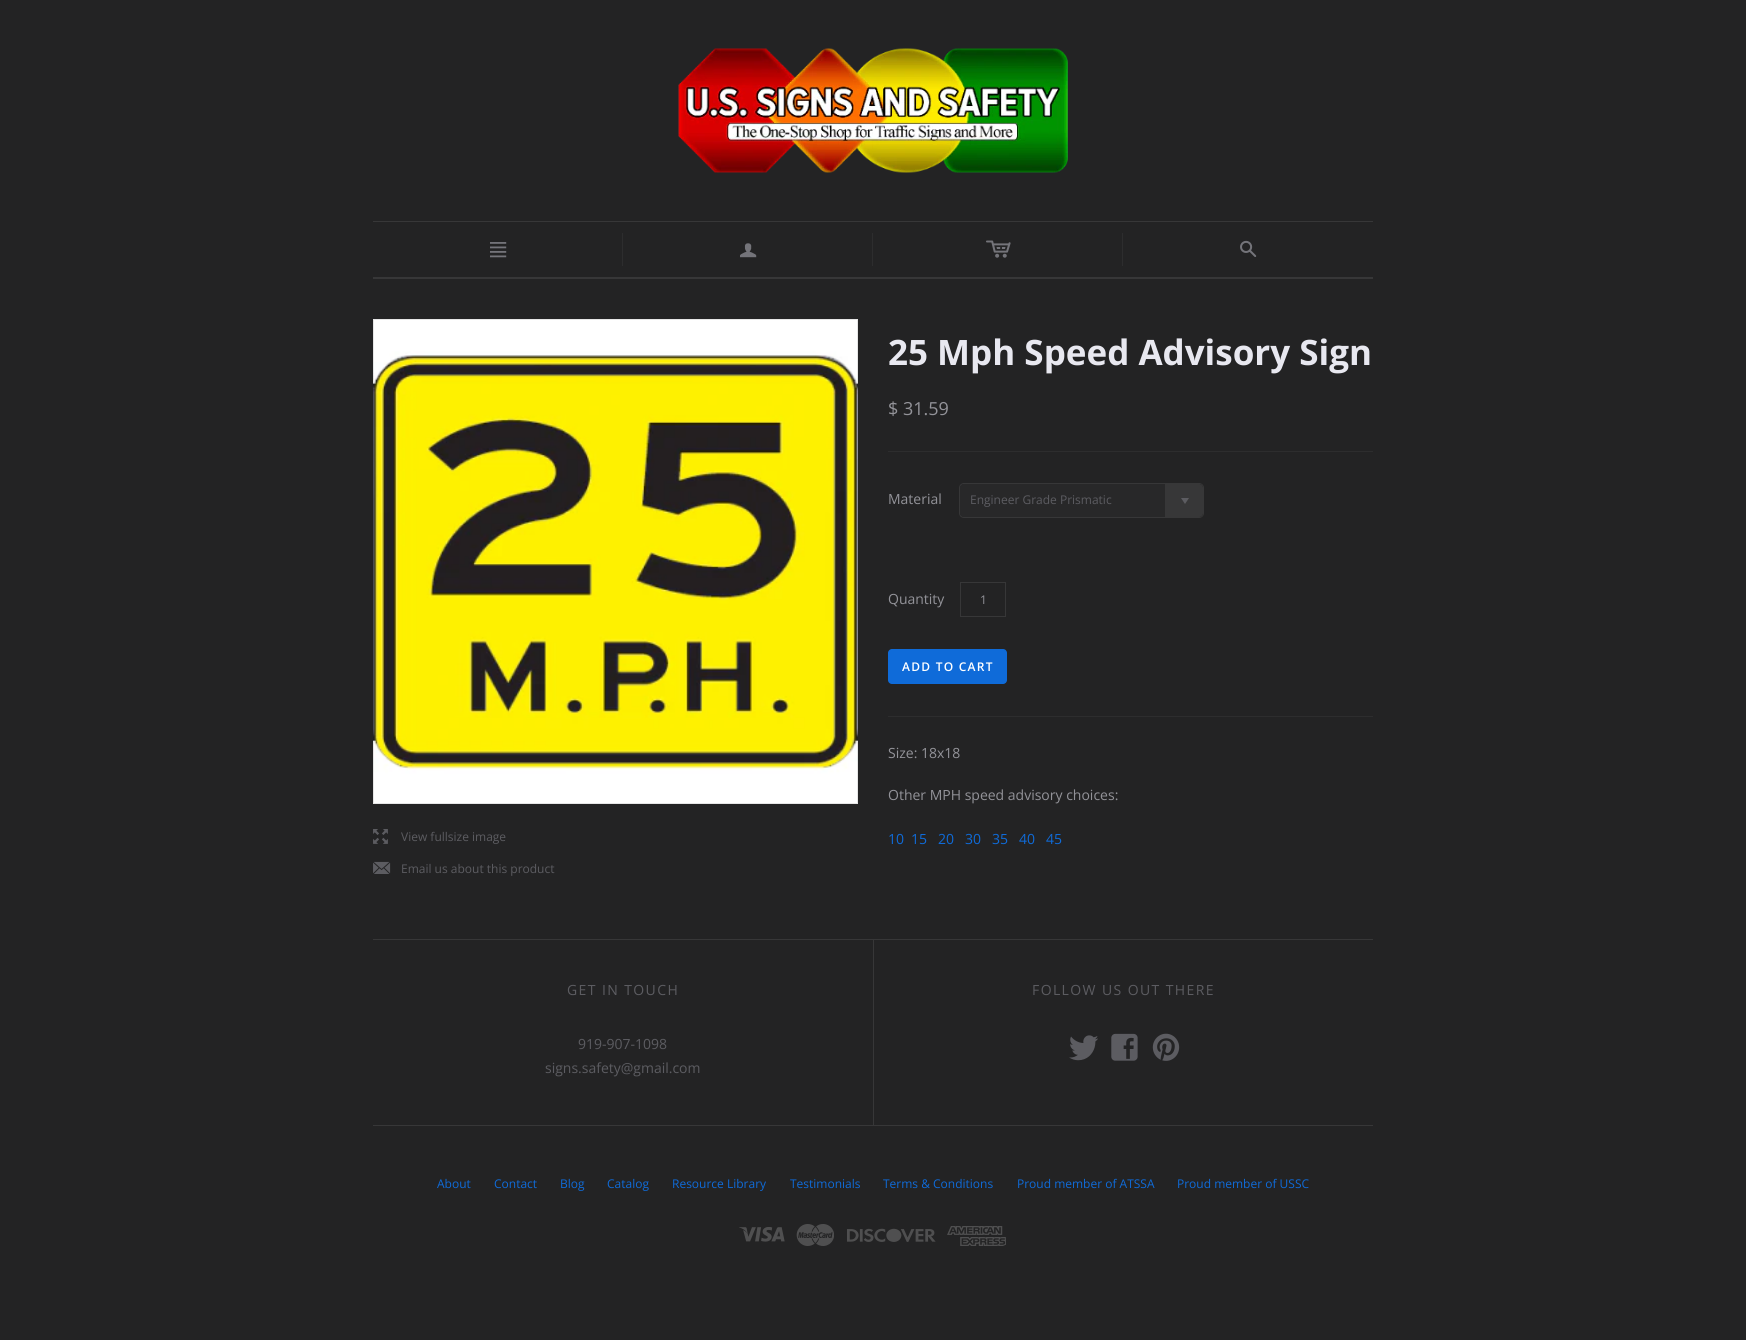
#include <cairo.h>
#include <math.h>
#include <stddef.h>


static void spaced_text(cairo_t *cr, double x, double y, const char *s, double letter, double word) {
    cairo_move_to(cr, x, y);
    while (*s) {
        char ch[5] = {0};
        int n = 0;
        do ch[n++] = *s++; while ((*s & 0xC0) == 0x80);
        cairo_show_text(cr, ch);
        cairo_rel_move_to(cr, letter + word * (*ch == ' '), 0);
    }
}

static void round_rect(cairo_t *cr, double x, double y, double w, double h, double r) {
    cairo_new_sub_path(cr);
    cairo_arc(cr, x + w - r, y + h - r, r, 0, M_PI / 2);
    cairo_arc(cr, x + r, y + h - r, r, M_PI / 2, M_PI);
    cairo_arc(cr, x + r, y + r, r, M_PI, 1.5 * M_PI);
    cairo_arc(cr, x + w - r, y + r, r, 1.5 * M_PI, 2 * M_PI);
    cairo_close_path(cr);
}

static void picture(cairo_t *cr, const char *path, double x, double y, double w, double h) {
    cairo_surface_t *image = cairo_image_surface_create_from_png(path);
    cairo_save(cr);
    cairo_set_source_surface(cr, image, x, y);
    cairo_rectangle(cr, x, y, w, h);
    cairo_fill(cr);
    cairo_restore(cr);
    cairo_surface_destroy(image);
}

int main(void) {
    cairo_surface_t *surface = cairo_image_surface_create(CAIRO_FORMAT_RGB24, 1746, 1340);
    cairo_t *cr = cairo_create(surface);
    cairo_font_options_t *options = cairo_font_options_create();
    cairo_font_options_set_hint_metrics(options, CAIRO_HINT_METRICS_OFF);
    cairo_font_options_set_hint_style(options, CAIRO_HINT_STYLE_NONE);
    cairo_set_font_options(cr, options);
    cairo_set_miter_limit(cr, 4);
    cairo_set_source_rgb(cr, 0.137, 0.137, 0.141);
    cairo_paint(cr);
    picture(cr, "img1.png", 678, 48, 390, 125);
    cairo_set_source_rgb(cr, 0.216, 0.216, 0.22);
    cairo_rectangle(cr, 373, 221, 1000, 1);
    cairo_fill(cr);
    cairo_rectangle(cr, 373, 277, 1000, 2);
    cairo_fill(cr);
    picture(cr, "img2.png", 490, 242, 17, 16);
    cairo_set_source_rgb(cr, 0.176, 0.176, 0.18);
    cairo_rectangle(cr, 622, 233, 1, 33);
    cairo_fill(cr);
    picture(cr, "img3.png", 740, 243, 17, 15);
    cairo_rectangle(cr, 872, 233, 1, 33);
    cairo_fill(cr);
    picture(cr, "img4.png", 986, 240, 25, 18);
    cairo_rectangle(cr, 1122, 233, 1, 33);
    cairo_fill(cr);
    picture(cr, "img5.png", 1240, 240, 17, 17);
    cairo_select_font_face(cr, "Open Sans", CAIRO_FONT_SLANT_NORMAL, CAIRO_FONT_WEIGHT_BOLD);
    cairo_set_font_size(cr, 35);
    cairo_set_source_rgb(cr, 0.91, 0.91, 0.941);
    cairo_move_to(cr, 888, 365);
    cairo_show_text(cr, "25 Mph Speed Advisory Sign");
    cairo_select_font_face(cr, "Open Sans", CAIRO_FONT_SLANT_NORMAL, CAIRO_FONT_WEIGHT_NORMAL);
    cairo_set_font_size(cr, 18);
    cairo_set_source_rgb(cr, 0.576, 0.576, 0.6);
    cairo_move_to(cr, 888, 415);
    cairo_show_text(cr, "$ 31.59");
    cairo_set_source_rgb(cr, 0.176, 0.176, 0.18);
    cairo_rectangle(cr, 888, 451, 485, 1);
    cairo_fill(cr);
    cairo_set_font_size(cr, 14);
    cairo_set_source_rgb(cr, 0.576, 0.576, 0.6);
    cairo_move_to(cr, 888, 504);
    cairo_show_text(cr, "Material");
    round_rect(cr, 959.5, 483.5, 244, 34, 4.5);
    cairo_set_source_rgb(cr, 0.216, 0.216, 0.22);
    cairo_set_line_width(cr, 1);
    cairo_stroke(cr);
    cairo_set_source_rgb(cr, 0.157, 0.157, 0.161);
    round_rect(cr, 960, 484, 243, 33, 4);
    cairo_fill(cr);
    cairo_set_font_size(cr, 12);
    cairo_set_source_rgb(cr, 0.361, 0.361, 0.38);
    cairo_move_to(cr, 970, 504);
    cairo_show_text(cr, "Engineer Grade Prismatic");
    cairo_set_source_rgb(cr, 0.216, 0.216, 0.22);
    cairo_new_path(cr);
    cairo_move_to(cr, 1165, 484);
    cairo_line_to(cr, 1199, 484);
    cairo_curve_to(cr, 1201, 484, 1203, 486, 1203, 488);
    cairo_line_to(cr, 1203, 513);
    cairo_curve_to(cr, 1203, 515, 1201, 517, 1199, 517);
    cairo_line_to(cr, 1165, 517);
    cairo_close_path(cr);
    cairo_fill(cr);
    cairo_set_source_rgb(cr, 0.361, 0.361, 0.38);
    cairo_new_path(cr);
    cairo_move_to(cr, 1181, 498);
    cairo_line_to(cr, 1189, 498);
    cairo_line_to(cr, 1185, 504);
    cairo_close_path(cr);
    cairo_fill(cr);
    cairo_set_font_size(cr, 14);
    cairo_set_source_rgb(cr, 0.576, 0.576, 0.6);
    cairo_move_to(cr, 888, 604);
    cairo_show_text(cr, "Quantity");
    cairo_rectangle(cr, 960.5, 582.5, 45, 34);
    cairo_set_source_rgb(cr, 0.216, 0.216, 0.22);
    cairo_stroke(cr);
    cairo_set_font_size(cr, 12);
    cairo_set_source_rgb(cr, 0.576, 0.576, 0.6);
    cairo_move_to(cr, 980, 604);
    cairo_show_text(cr, "1");
    cairo_set_source_rgb(cr, 0.059, 0.42, 0.851);
    round_rect(cr, 888, 649, 119, 35, 4);
    cairo_fill(cr);
    cairo_select_font_face(cr, "Open Sans SemiBold", CAIRO_FONT_SLANT_NORMAL, CAIRO_FONT_WEIGHT_NORMAL);
    cairo_set_source_rgb(cr, 1, 1, 1);
    spaced_text(cr, 902, 671, "ADD TO CART", 1.25, 0);
    cairo_set_source_rgb(cr, 0.176, 0.176, 0.18);
    cairo_rectangle(cr, 888, 716, 485, 1);
    cairo_fill(cr);
    cairo_select_font_face(cr, "Open Sans", CAIRO_FONT_SLANT_NORMAL, CAIRO_FONT_WEIGHT_NORMAL);
    cairo_set_font_size(cr, 14);
    cairo_set_source_rgb(cr, 0.576, 0.576, 0.6);
    cairo_move_to(cr, 888, 758);
    cairo_show_text(cr, "Size: 18x18");
    cairo_move_to(cr, 888, 800);
    cairo_show_text(cr, "Other MPH speed advisory choices:");
    cairo_set_source_rgb(cr, 0.059, 0.42, 0.851);
    cairo_move_to(cr, 888, 844);
    cairo_show_text(cr, "10");
    cairo_move_to(cr, 911, 844);
    cairo_show_text(cr, "15");
    cairo_move_to(cr, 938, 844);
    cairo_show_text(cr, "20");
    cairo_move_to(cr, 965, 844);
    cairo_show_text(cr, "30");
    cairo_move_to(cr, 992, 844);
    cairo_show_text(cr, "35");
    cairo_move_to(cr, 1019, 844);
    cairo_show_text(cr, "40");
    cairo_move_to(cr, 1046, 844);
    cairo_show_text(cr, "45");
    picture(cr, "img6.png", 373, 319, 485, 485);
    cairo_rectangle(cr, 373.5, 319.5, 484, 484);
    cairo_set_source_rgba(cr, 0, 0, 0, 0.1);
    cairo_stroke(cr);
    picture(cr, "img7.png", 373, 829, 15, 15);
    cairo_set_font_size(cr, 12);
    cairo_set_source_rgb(cr, 0.361, 0.361, 0.38);
    cairo_move_to(cr, 401, 841);
    cairo_show_text(cr, "View fullsize image");
    picture(cr, "img8.png", 373, 861, 18, 13);
    cairo_move_to(cr, 401, 873);
    cairo_show_text(cr, "Email us about this product");
    cairo_set_source_rgb(cr, 0.216, 0.216, 0.22);
    cairo_rectangle(cr, 373, 939, 1000, 1);
    cairo_fill(cr);
    cairo_rectangle(cr, 373, 1125, 1000, 1);
    cairo_fill(cr);
    cairo_set_font_size(cr, 14);
    cairo_set_source_rgb(cr, 0.361, 0.361, 0.38);
    spaced_text(cr, 567, 995, "GET IN TOUCH", 1.4, 0);
    cairo_move_to(cr, 578, 1049);
    cairo_show_text(cr, "919-907-1098");
    cairo_move_to(cr, 545, 1073);
    cairo_show_text(cr, "signs.safety@gmail.com");
    cairo_set_source_rgb(cr, 0.216, 0.216, 0.22);
    cairo_rectangle(cr, 873, 940, 1, 185);
    cairo_fill(cr);
    cairo_set_source_rgb(cr, 0.361, 0.361, 0.38);
    spaced_text(cr, 1032, 995, "FOLLOW US OUT THERE", 1.4, 0);
    picture(cr, "img9.png", 1069, 1035, 29, 26);
    picture(cr, "img10.png", 1111, 1033, 27, 28);
    picture(cr, "img11.png", 1152, 1033, 28, 28);
    cairo_set_font_size(cr, 12);
    cairo_set_source_rgb(cr, 0.059, 0.42, 0.851);
    cairo_move_to(cr, 437, 1188);
    cairo_show_text(cr, "About");
    cairo_move_to(cr, 494, 1188);
    cairo_show_text(cr, "Contact");
    cairo_move_to(cr, 560, 1188);
    cairo_show_text(cr, "Blog");
    cairo_move_to(cr, 607, 1188);
    cairo_show_text(cr, "Catalog");
    cairo_move_to(cr, 672, 1188);
    cairo_show_text(cr, "Resource Library");
    cairo_move_to(cr, 790, 1188);
    cairo_show_text(cr, "Testimonials");
    cairo_move_to(cr, 883, 1188);
    cairo_show_text(cr, "Terms & Conditions");
    cairo_move_to(cr, 1017, 1188);
    cairo_show_text(cr, "Proud member of ATSSA");
    cairo_move_to(cr, 1177, 1188);
    cairo_show_text(cr, "Proud member of USSC");
    picture(cr, "img12.png", 739, 1227, 46, 15);
    picture(cr, "img13.png", 796, 1224, 38, 22);
    picture(cr, "img14.png", 847, 1228, 89, 14);
    picture(cr, "img15.png", 947, 1226, 59, 20);
    cairo_surface_write_to_png(surface, "page.png");
    cairo_font_options_destroy(options);
    cairo_destroy(cr);
    cairo_surface_destroy(surface);
    return 0;
}
